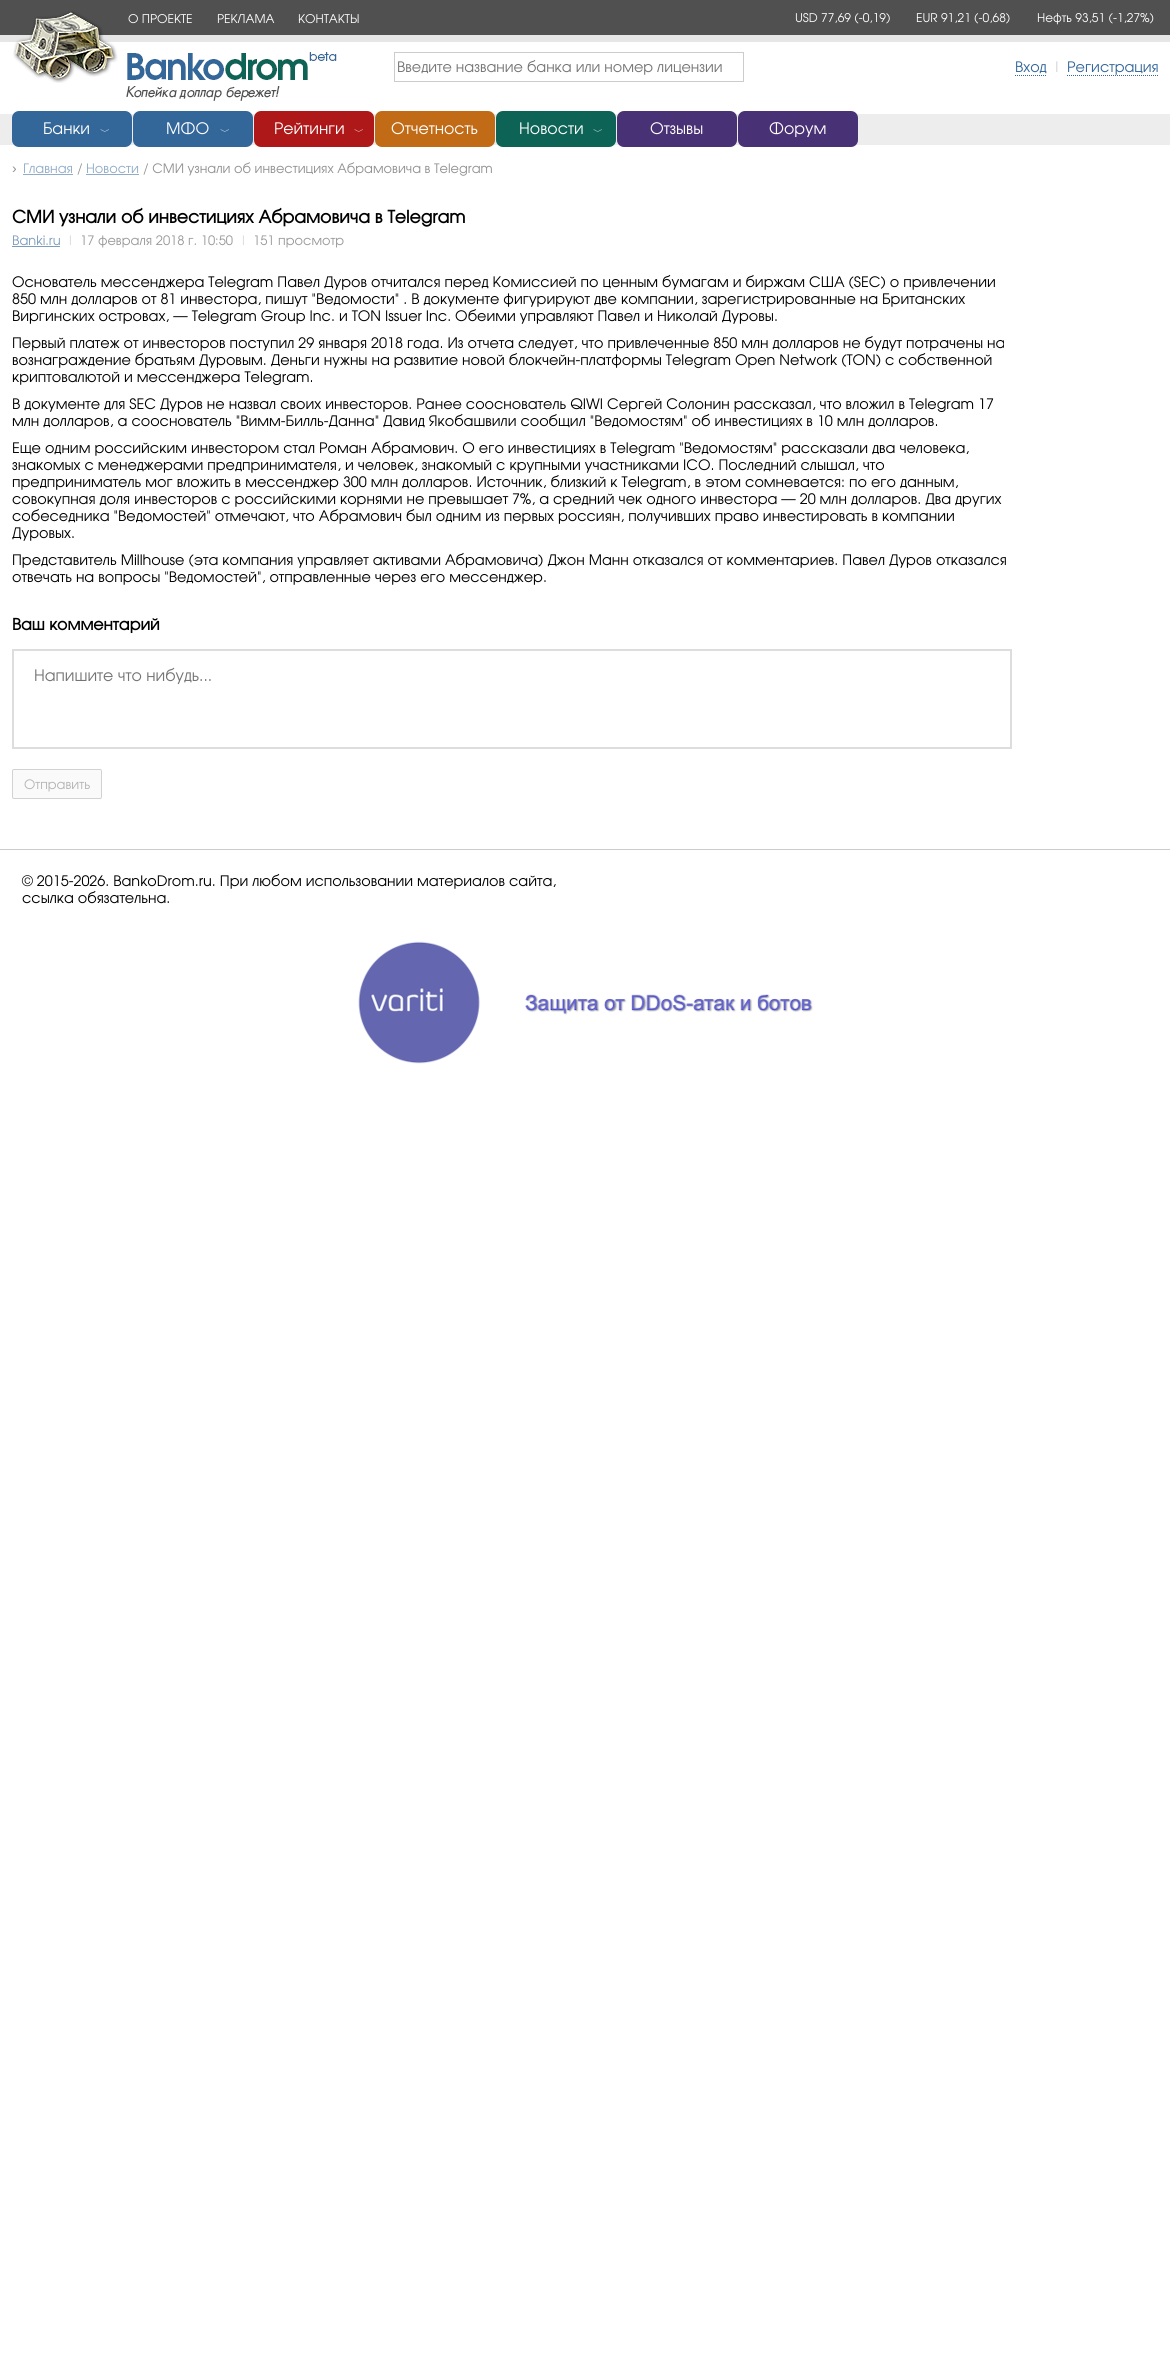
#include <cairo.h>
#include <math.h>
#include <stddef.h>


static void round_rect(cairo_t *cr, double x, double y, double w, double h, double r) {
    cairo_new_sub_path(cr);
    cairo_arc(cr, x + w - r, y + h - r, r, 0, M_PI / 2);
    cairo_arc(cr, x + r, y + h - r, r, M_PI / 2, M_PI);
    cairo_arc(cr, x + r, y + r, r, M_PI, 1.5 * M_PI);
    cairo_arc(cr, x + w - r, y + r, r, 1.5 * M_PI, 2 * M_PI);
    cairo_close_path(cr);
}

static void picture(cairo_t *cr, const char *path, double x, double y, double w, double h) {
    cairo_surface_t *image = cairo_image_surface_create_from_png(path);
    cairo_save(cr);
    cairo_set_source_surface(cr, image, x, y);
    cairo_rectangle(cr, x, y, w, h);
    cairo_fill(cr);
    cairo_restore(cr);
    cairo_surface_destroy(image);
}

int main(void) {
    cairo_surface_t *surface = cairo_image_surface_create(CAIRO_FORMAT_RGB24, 1170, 2379);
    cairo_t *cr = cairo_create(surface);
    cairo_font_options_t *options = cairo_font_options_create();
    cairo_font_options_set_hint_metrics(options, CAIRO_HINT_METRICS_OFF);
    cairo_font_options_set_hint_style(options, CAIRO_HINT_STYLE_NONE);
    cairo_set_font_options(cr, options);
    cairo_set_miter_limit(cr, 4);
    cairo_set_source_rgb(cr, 1, 1, 1);
    cairo_paint(cr);
    cairo_set_source_rgb(cr, 0.314, 0.314, 0.314);
    cairo_rectangle(cr, 0, 0, 1170, 35);
    cairo_fill(cr);
    cairo_set_source_rgb(cr, 0.902, 0.902, 0.902);
    cairo_rectangle(cr, 0, 35, 1170, 7);
    cairo_fill(cr);
    picture(cr, "img1.png", 13, 11, 105, 72);
    cairo_select_font_face(cr, "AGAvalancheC", CAIRO_FONT_SLANT_NORMAL, CAIRO_FONT_WEIGHT_NORMAL);
    cairo_set_font_size(cr, 12);
    cairo_set_source_rgb(cr, 1, 1, 1);
    cairo_move_to(cr, 128, 23);
    cairo_show_text(cr, "О ПРОЕКТЕ");
    cairo_move_to(cr, 217, 23);
    cairo_show_text(cr, "РЕКЛАМА");
    cairo_move_to(cr, 298, 23);
    cairo_show_text(cr, "КОНТАКТЫ");
    cairo_move_to(cr, 795, 22);
    cairo_show_text(cr, "USD 77,69 (-0,19)");
    cairo_move_to(cr, 916, 22);
    cairo_show_text(cr, "EUR 91,21 (-0,68)");
    cairo_move_to(cr, 1037, 22);
    cairo_show_text(cr, "Нефть 93,51 (-1,27%)");
    picture(cr, "img2.png", 126, 52, 211, 49);
    cairo_rectangle(cr, 394.5, 52.5, 349, 29);
    cairo_set_source_rgb(cr, 0.8, 0.8, 0.8);
    cairo_set_line_width(cr, 1);
    cairo_stroke(cr);
    cairo_set_font_size(cr, 14.4);
    cairo_set_source_rgb(cr, 0.459, 0.459, 0.459);
    cairo_move_to(cr, 397, 72);
    cairo_show_text(cr, "Введите название банка или номер лицензии");
    cairo_set_source_rgb(cr, 0.2, 0.4, 0.6);
    cairo_move_to(cr, 1015, 72);
    cairo_show_text(cr, "Вход");
    cairo_new_path(cr);
    cairo_move_to(cr, 1015, 75.5);
    cairo_line_to(cr, 1047, 75.5);
    cairo_set_dash(cr, (double[]){1, 1}, 2, 0);
    cairo_stroke(cr);
    cairo_set_source_rgb(cr, 0.8, 0.8, 0.8);
    cairo_move_to(cr, 1052, 72);
    cairo_show_text(cr, "|");
    cairo_set_source_rgb(cr, 0.2, 0.4, 0.6);
    cairo_move_to(cr, 1067, 72);
    cairo_show_text(cr, "Регистрация");
    cairo_new_path(cr);
    cairo_move_to(cr, 1067, 75.5);
    cairo_line_to(cr, 1158, 75.5);
    cairo_stroke(cr);
    cairo_set_source_rgb(cr, 0.929, 0.929, 0.929);
    cairo_rectangle(cr, 0, 114, 1170, 31);
    cairo_fill(cr);
    cairo_set_source_rgb(cr, 0.2, 0.4, 0.6);
    round_rect(cr, 12, 111, 120, 36, 7);
    cairo_fill(cr);
    cairo_set_font_size(cr, 15.8);
    cairo_set_source_rgb(cr, 1, 1, 1);
    cairo_move_to(cr, 43, 134);
    cairo_show_text(cr, "Банки");
    cairo_select_font_face(cr, "WenQuanYi Zen Hei Medium", CAIRO_FONT_SLANT_NORMAL, CAIRO_FONT_WEIGHT_NORMAL);
    cairo_set_font_size(cr, 10);
    cairo_set_source_rgb(cr, 0.839, 0.878, 0.922);
    cairo_move_to(cr, 100, 135);
    cairo_show_text(cr, "﹀");
    cairo_set_source_rgb(cr, 0.2, 0.4, 0.6);
    round_rect(cr, 133, 111, 120, 36, 7);
    cairo_fill(cr);
    cairo_select_font_face(cr, "AGAvalancheC", CAIRO_FONT_SLANT_NORMAL, CAIRO_FONT_WEIGHT_NORMAL);
    cairo_set_font_size(cr, 15.8);
    cairo_set_source_rgb(cr, 1, 1, 1);
    cairo_move_to(cr, 166, 134);
    cairo_show_text(cr, "МФО");
    cairo_select_font_face(cr, "WenQuanYi Zen Hei Medium", CAIRO_FONT_SLANT_NORMAL, CAIRO_FONT_WEIGHT_NORMAL);
    cairo_set_font_size(cr, 10);
    cairo_set_source_rgb(cr, 0.839, 0.878, 0.922);
    cairo_move_to(cr, 220, 135);
    cairo_show_text(cr, "﹀");
    cairo_set_source_rgb(cr, 0.686, 0.094, 0.094);
    round_rect(cr, 254, 111, 120, 36, 7);
    cairo_fill(cr);
    cairo_select_font_face(cr, "AGAvalancheC", CAIRO_FONT_SLANT_NORMAL, CAIRO_FONT_WEIGHT_NORMAL);
    cairo_set_font_size(cr, 15.8);
    cairo_set_source_rgb(cr, 1, 1, 1);
    cairo_move_to(cr, 274, 134);
    cairo_show_text(cr, "Рейтинги");
    cairo_select_font_face(cr, "WenQuanYi Zen Hei Medium", CAIRO_FONT_SLANT_NORMAL, CAIRO_FONT_WEIGHT_NORMAL);
    cairo_set_font_size(cr, 10);
    cairo_set_source_rgb(cr, 0.937, 0.82, 0.82);
    cairo_move_to(cr, 354, 135);
    cairo_show_text(cr, "﹀");
    cairo_set_source_rgb(cr, 0.757, 0.42, 0.086);
    round_rect(cr, 375, 111, 120, 36, 7);
    cairo_fill(cr);
    cairo_select_font_face(cr, "AGAvalancheC", CAIRO_FONT_SLANT_NORMAL, CAIRO_FONT_WEIGHT_NORMAL);
    cairo_set_font_size(cr, 15.8);
    cairo_set_source_rgb(cr, 1, 1, 1);
    cairo_move_to(cr, 391, 134);
    cairo_show_text(cr, "Отчетность");
    cairo_set_source_rgb(cr, 0.051, 0.392, 0.337);
    round_rect(cr, 496, 111, 120, 36, 7);
    cairo_fill(cr);
    cairo_set_source_rgb(cr, 1, 1, 1);
    cairo_move_to(cr, 519, 134);
    cairo_show_text(cr, "Новости");
    cairo_select_font_face(cr, "WenQuanYi Zen Hei Medium", CAIRO_FONT_SLANT_NORMAL, CAIRO_FONT_WEIGHT_NORMAL);
    cairo_set_font_size(cr, 10);
    cairo_set_source_rgb(cr, 0.812, 0.878, 0.867);
    cairo_move_to(cr, 593, 135);
    cairo_show_text(cr, "﹀");
    cairo_set_source_rgb(cr, 0.286, 0.192, 0.459);
    round_rect(cr, 617, 111, 120, 36, 7);
    cairo_fill(cr);
    cairo_select_font_face(cr, "AGAvalancheC", CAIRO_FONT_SLANT_NORMAL, CAIRO_FONT_WEIGHT_NORMAL);
    cairo_set_font_size(cr, 15.8);
    cairo_set_source_rgb(cr, 1, 1, 1);
    cairo_move_to(cr, 650, 134);
    cairo_show_text(cr, "Отзывы");
    cairo_set_source_rgb(cr, 0.286, 0.192, 0.459);
    round_rect(cr, 738, 111, 120, 36, 7);
    cairo_fill(cr);
    cairo_set_source_rgb(cr, 1, 1, 1);
    cairo_move_to(cr, 769, 134);
    cairo_show_text(cr, "Форум");
    cairo_select_font_face(cr, "Liberation Sans", CAIRO_FONT_SLANT_NORMAL, CAIRO_FONT_WEIGHT_NORMAL);
    cairo_set_font_size(cr, 14);
    cairo_set_source_rgb(cr, 0.569, 0.569, 0.569);
    cairo_move_to(cr, 12, 173);
    cairo_show_text(cr, "›");
    cairo_select_font_face(cr, "AGAvalancheC", CAIRO_FONT_SLANT_NORMAL, CAIRO_FONT_WEIGHT_NORMAL);
    cairo_set_font_size(cr, 12.95);
    cairo_set_source_rgb(cr, 0.569, 0.675, 0.784);
    cairo_move_to(cr, 23, 173);
    cairo_show_text(cr, "Главная");
    cairo_rectangle(cr, 23, 174, 50, 1);
    cairo_fill(cr);
    cairo_set_source_rgb(cr, 0.569, 0.569, 0.569);
    cairo_move_to(cr, 77, 173);
    cairo_show_text(cr, "/");
    cairo_set_source_rgb(cr, 0.569, 0.675, 0.784);
    cairo_move_to(cr, 86, 173);
    cairo_show_text(cr, "Новости");
    cairo_rectangle(cr, 86, 174, 53, 1);
    cairo_fill(cr);
    cairo_set_source_rgb(cr, 0.569, 0.569, 0.569);
    cairo_move_to(cr, 143, 173);
    cairo_show_text(cr, "/ СМИ узнали об инвестициях Абрамовича в Telegram");
    cairo_select_font_face(cr, "AGAvalancheC", CAIRO_FONT_SLANT_NORMAL, CAIRO_FONT_WEIGHT_BOLD);
    cairo_set_font_size(cr, 17.25);
    cairo_set_source_rgb(cr, 0, 0, 0);
    cairo_move_to(cr, 12, 223);
    cairo_show_text(cr, "СМИ узнали об инвестициях Абрамовича в Telegram");
    cairo_select_font_face(cr, "AGAvalancheC", CAIRO_FONT_SLANT_NORMAL, CAIRO_FONT_WEIGHT_NORMAL);
    cairo_set_font_size(cr, 12.95);
    cairo_set_source_rgb(cr, 0.482, 0.612, 0.741);
    cairo_move_to(cr, 12, 245);
    cairo_show_text(cr, "Banki.ru");
    cairo_rectangle(cr, 12, 246, 48, 1);
    cairo_fill(cr);
    cairo_set_source_rgb(cr, 0.839, 0.839, 0.839);
    cairo_move_to(cr, 66, 245);
    cairo_show_text(cr, "|");
    cairo_set_source_rgb(cr, 0.6, 0.6, 0.6);
    cairo_move_to(cr, 80, 245);
    cairo_show_text(cr, "17 февраля 2018 г. 10:50");
    cairo_set_source_rgb(cr, 0.839, 0.839, 0.839);
    cairo_move_to(cr, 239, 245);
    cairo_show_text(cr, "|");
    cairo_set_source_rgb(cr, 0.6, 0.6, 0.6);
    cairo_move_to(cr, 253, 245);
    cairo_show_text(cr, "151 просмотр");
    cairo_set_font_size(cr, 14.4);
    cairo_set_source_rgb(cr, 0, 0, 0);
    cairo_move_to(cr, 12, 287);
    cairo_show_text(cr, "Основатель мессенджера Telegram Павел Дуров отчитался перед Комиссией по ценным бумагам и биржам США (SEC) о привлечении");
    cairo_move_to(cr, 12, 304);
    cairo_show_text(cr, "850 млн долларов от 81 инвестора, пишут \"Ведомости\" . В документе фигурируют две компании, зарегистрированные на Британских");
    cairo_move_to(cr, 12, 321);
    cairo_show_text(cr, "Виргинских островах, — Telegram Group Inc. и TON Issuer Inc. Обеими управляют Павел и Николай Дуровы.");
    cairo_move_to(cr, 12, 348);
    cairo_show_text(cr, "Первый платеж от инвесторов поступил 29 января 2018 года. Из отчета следует, что привлеченные 850 млн долларов не будут потрачены на");
    cairo_move_to(cr, 12, 365);
    cairo_show_text(cr, "вознаграждение братьям Дуровым. Деньги нужны на развитие новой блокчейн-платформы Telegram Open Network (TON) c собственной");
    cairo_move_to(cr, 12, 382);
    cairo_show_text(cr, "криптовалютой и мессенджера Telegram.");
    cairo_move_to(cr, 12, 409);
    cairo_show_text(cr, "В документе для SEC Дуров не назвал своих инвесторов. Ранее сооснователь QIWI Сергей Солонин рассказал, что вложил в Telegram 17");
    cairo_move_to(cr, 12, 426);
    cairo_show_text(cr, "млн долларов, а сооснователь \"Вимм-Билль-Данна\" Давид Якобашвили сообщил \"Ведомостям\" об инвестициях в 10 млн долларов.");
    cairo_move_to(cr, 12, 453);
    cairo_show_text(cr, "Еще одним российским инвестором стал Роман Абрамович. О его инвестициях в Telegram \"Ведомостям\" рассказали два человека,");
    cairo_move_to(cr, 12, 470);
    cairo_show_text(cr, "знакомых с менеджерами предпринимателя, и человек, знакомый с крупными участниками ICO. Последний слышал, что");
    cairo_move_to(cr, 12, 487);
    cairo_show_text(cr, "предприниматель мог вложить в мессенджер 300 млн долларов. Источник, близкий к Telegram, в этом сомневается: по его данным,");
    cairo_move_to(cr, 12, 504);
    cairo_show_text(cr, "совокупная доля инвесторов с российскими корнями не превышает 7%, а средний чек одного инвестора — 20 млн долларов. Два других");
    cairo_move_to(cr, 12, 521);
    cairo_show_text(cr, "собеседника \"Ведомостей\" отмечают, что Абрамович был одним из первых россиян, получивших право инвестировать в компании");
    cairo_move_to(cr, 12, 538);
    cairo_show_text(cr, "Дуровых.");
    cairo_move_to(cr, 12, 565);
    cairo_show_text(cr, "Представитель Millhouse (эта компания управляет активами Абрамовича) Джон Манн отказался от комментариев. Павел Дуров отказался");
    cairo_move_to(cr, 12, 582);
    cairo_show_text(cr, "отвечать на вопросы \"Ведомостей\", отправленные через его мессенджер.");
    cairo_select_font_face(cr, "AGAvalancheC", CAIRO_FONT_SLANT_NORMAL, CAIRO_FONT_WEIGHT_BOLD);
    cairo_set_font_size(cr, 15.8);
    cairo_move_to(cr, 12, 630);
    cairo_show_text(cr, "Ваш комментарий");
    cairo_rectangle(cr, 13, 650, 998, 98);
    cairo_set_source_rgb(cr, 0.867, 0.867, 0.867);
    cairo_set_line_width(cr, 2);
    cairo_set_dash(cr, NULL, 0, 0);
    cairo_stroke(cr);
    cairo_select_font_face(cr, "AGAvalancheC", CAIRO_FONT_SLANT_NORMAL, CAIRO_FONT_WEIGHT_NORMAL);
    cairo_set_source_rgb(cr, 0.459, 0.459, 0.459);
    cairo_move_to(cr, 34, 681);
    cairo_show_text(cr, "Напишите что нибудь...");
    cairo_set_source_rgb(cr, 0.98, 0.98, 0.98);
    round_rect(cr, 12.5, 769.5, 89, 29, 1.5);
    cairo_fill_preserve(cr);
    cairo_set_source_rgb(cr, 0.824, 0.824, 0.824);
    cairo_set_line_width(cr, 1);
    cairo_stroke(cr);
    cairo_set_font_size(cr, 12.95);
    cairo_set_source_rgb(cr, 0.706, 0.706, 0.706);
    cairo_move_to(cr, 24, 789);
    cairo_show_text(cr, "Отправить");
    cairo_set_source_rgb(cr, 0.8, 0.8, 0.8);
    cairo_rectangle(cr, 0, 849, 1170, 1);
    cairo_fill(cr);
    cairo_set_font_size(cr, 14.4);
    cairo_set_source_rgb(cr, 0, 0, 0);
    cairo_move_to(cr, 22, 886);
    cairo_show_text(cr, "© 2015-2026. BankoDrom.ru. При любом использовании материалов сайта,");
    cairo_move_to(cr, 22, 903);
    cairo_show_text(cr, "ссылка обязательна.");
    picture(cr, "img3.png", 358, 941, 455, 123);
    cairo_surface_write_to_png(surface, "page.png");
    cairo_font_options_destroy(options);
    cairo_destroy(cr);
    cairo_surface_destroy(surface);
    return 0;
}
